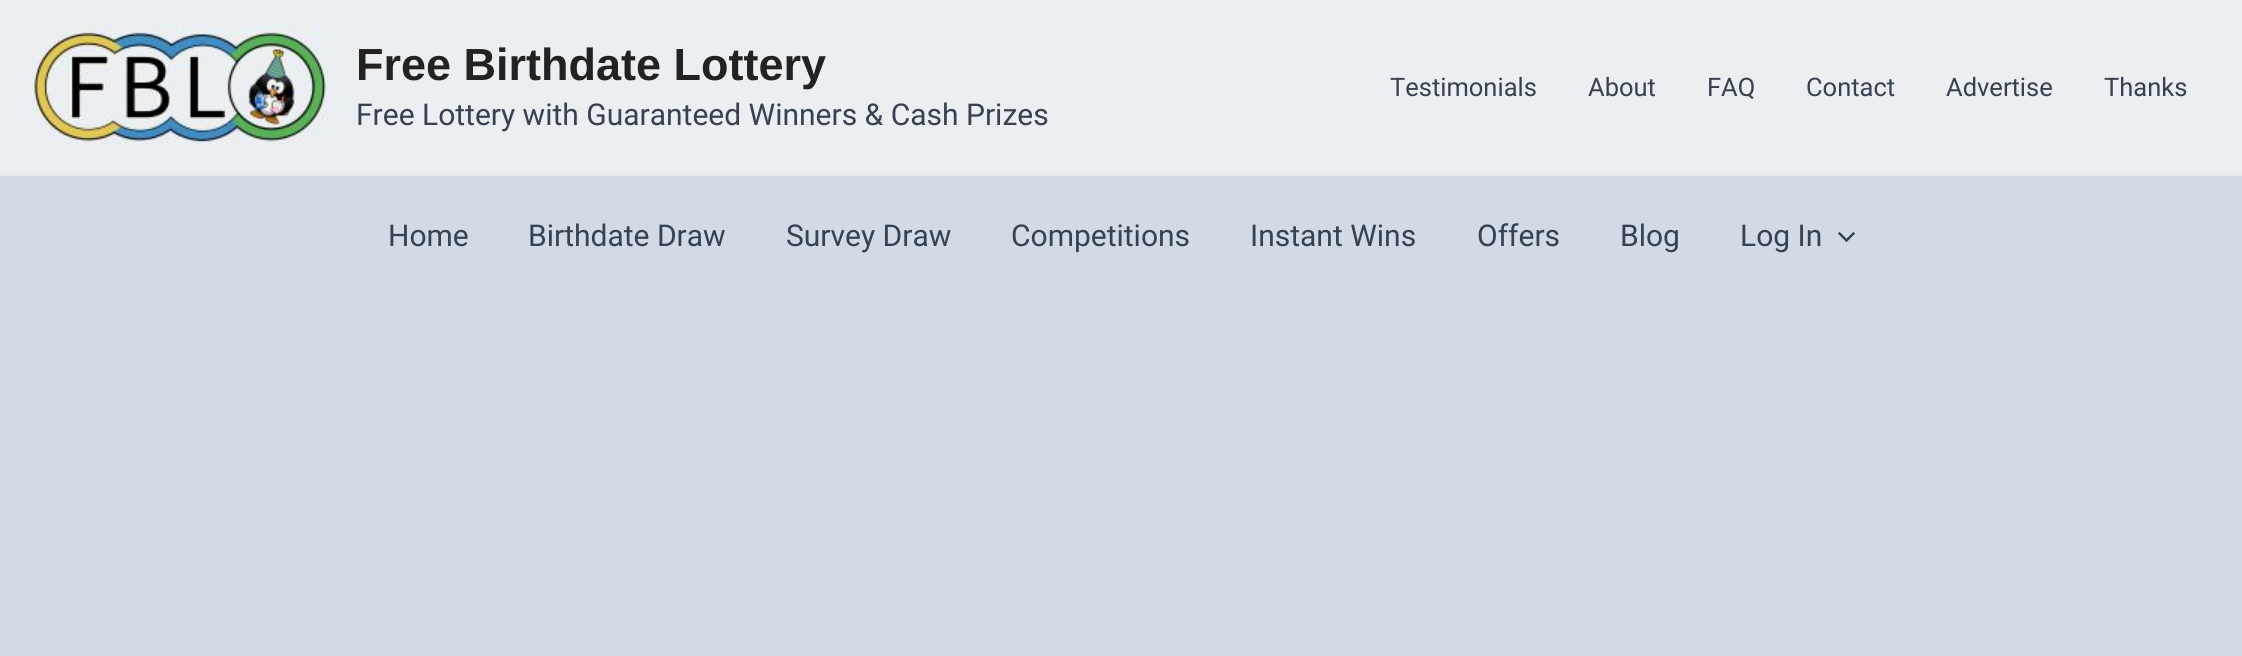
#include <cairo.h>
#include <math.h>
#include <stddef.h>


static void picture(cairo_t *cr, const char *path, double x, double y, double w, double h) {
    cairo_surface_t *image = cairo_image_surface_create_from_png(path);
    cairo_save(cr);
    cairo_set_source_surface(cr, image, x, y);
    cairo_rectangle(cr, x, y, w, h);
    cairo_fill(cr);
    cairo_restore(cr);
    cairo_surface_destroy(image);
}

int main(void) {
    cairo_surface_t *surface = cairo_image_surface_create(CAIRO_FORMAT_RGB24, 2242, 656);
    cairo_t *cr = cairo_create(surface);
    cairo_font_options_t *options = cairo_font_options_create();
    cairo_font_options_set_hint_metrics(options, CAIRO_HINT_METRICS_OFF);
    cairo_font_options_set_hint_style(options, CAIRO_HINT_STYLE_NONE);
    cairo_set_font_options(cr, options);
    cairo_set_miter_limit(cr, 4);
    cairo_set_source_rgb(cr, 0.925, 0.937, 0.949);
    cairo_paint(cr);
    cairo_set_source_rgb(cr, 0.918, 0.918, 0.918);
    cairo_rectangle(cr, 0, 174, 2242, 2);
    cairo_fill(cr);
    picture(cr, "img1.png", 30, 25, 300, 122);
    cairo_select_font_face(cr, "Liberation Sans", CAIRO_FONT_SLANT_NORMAL, CAIRO_FONT_WEIGHT_BOLD);
    cairo_set_font_size(cr, 45);
    cairo_set_source_rgb(cr, 0.133, 0.133, 0.133);
    cairo_move_to(cr, 356, 80);
    cairo_show_text(cr, "Free Birthdate Lottery");
    cairo_select_font_face(cr, "Roboto", CAIRO_FONT_SLANT_NORMAL, CAIRO_FONT_WEIGHT_NORMAL);
    cairo_set_font_size(cr, 30);
    cairo_set_source_rgb(cr, 0.212, 0.255, 0.318);
    cairo_move_to(cr, 356, 125);
    cairo_show_text(cr, "Free Lottery with Guaranteed Winners & Cash Prizes");
    cairo_set_font_size(cr, 25.5);
    cairo_move_to(cr, 1390, 96);
    cairo_show_text(cr, "Testimonials");
    cairo_move_to(cr, 1588, 96);
    cairo_show_text(cr, "About");
    cairo_move_to(cr, 1707, 96);
    cairo_show_text(cr, "FAQ");
    cairo_move_to(cr, 1806, 96);
    cairo_show_text(cr, "Contact");
    cairo_move_to(cr, 1946, 96);
    cairo_show_text(cr, "Advertise");
    cairo_move_to(cr, 2104, 96);
    cairo_show_text(cr, "Thanks");
    cairo_set_source_rgb(cr, 0.82, 0.855, 0.898);
    cairo_rectangle(cr, 0, 176, 2242, 480);
    cairo_fill(cr);
    cairo_set_font_size(cr, 30);
    cairo_set_source_rgb(cr, 0.212, 0.255, 0.318);
    cairo_move_to(cr, 388, 246);
    cairo_show_text(cr, "Home");
    cairo_move_to(cr, 528, 246);
    cairo_show_text(cr, "Birthdate Draw");
    cairo_move_to(cr, 786, 246);
    cairo_show_text(cr, "Survey Draw");
    cairo_move_to(cr, 1011, 246);
    cairo_show_text(cr, "Competitions");
    cairo_move_to(cr, 1250, 246);
    cairo_show_text(cr, "Instant Wins");
    cairo_move_to(cr, 1477, 246);
    cairo_show_text(cr, "Offers");
    cairo_move_to(cr, 1620, 246);
    cairo_show_text(cr, "Blog");
    cairo_move_to(cr, 1740, 246);
    cairo_show_text(cr, "Log In");
    picture(cr, "img2.png", 1838, 231, 17, 12);
    cairo_surface_write_to_png(surface, "page.png");
    cairo_font_options_destroy(options);
    cairo_destroy(cr);
    cairo_surface_destroy(surface);
    return 0;
}
